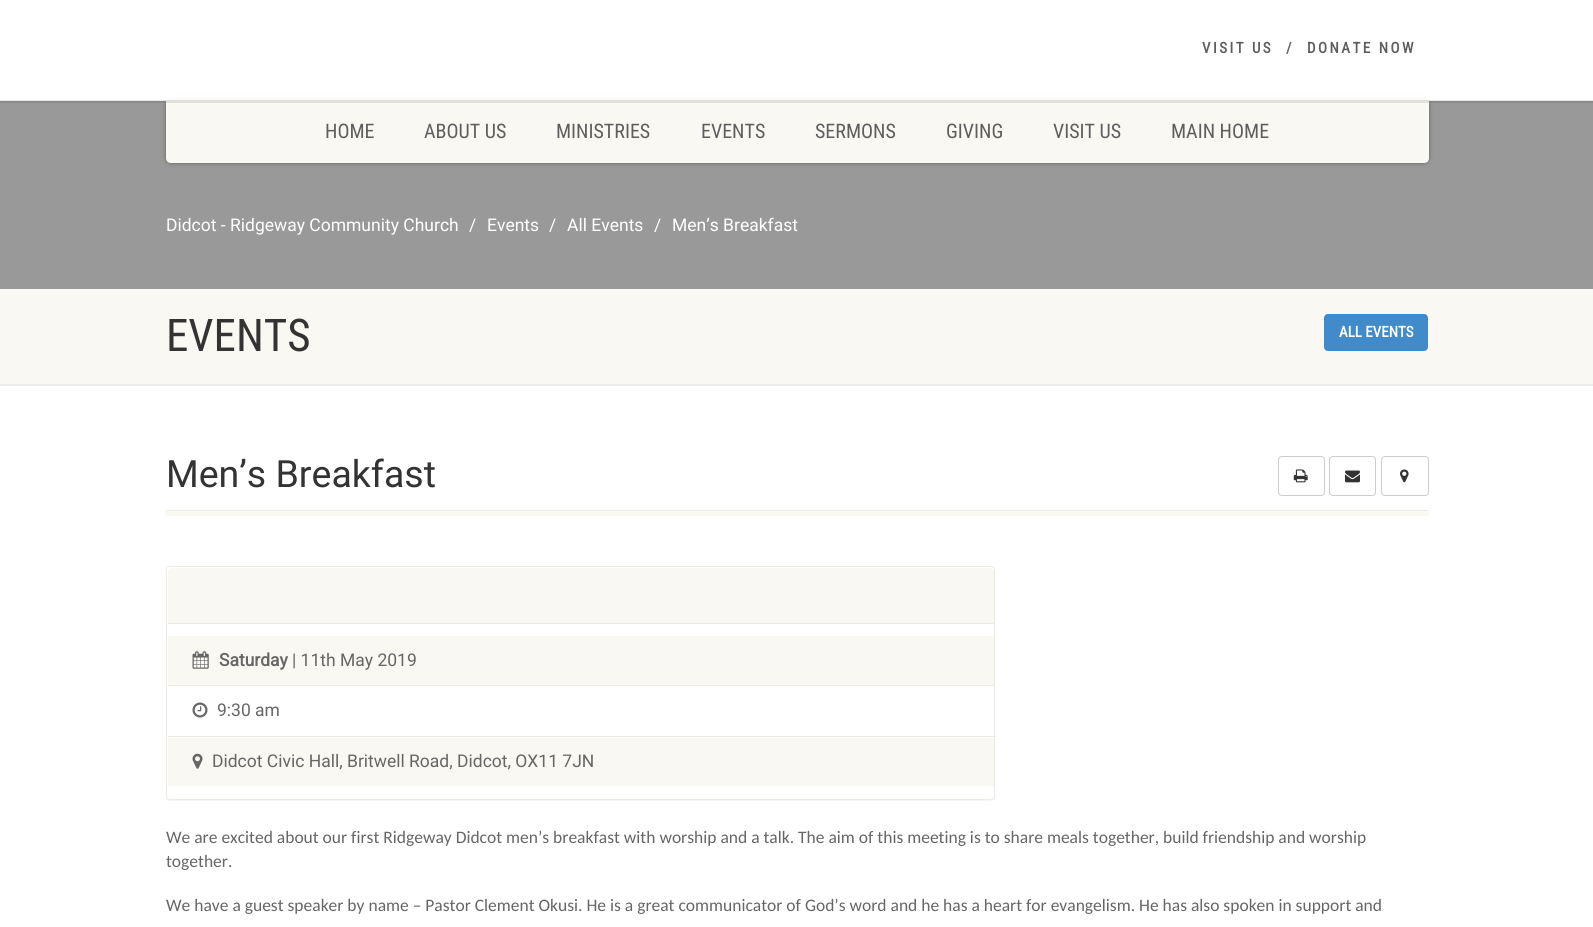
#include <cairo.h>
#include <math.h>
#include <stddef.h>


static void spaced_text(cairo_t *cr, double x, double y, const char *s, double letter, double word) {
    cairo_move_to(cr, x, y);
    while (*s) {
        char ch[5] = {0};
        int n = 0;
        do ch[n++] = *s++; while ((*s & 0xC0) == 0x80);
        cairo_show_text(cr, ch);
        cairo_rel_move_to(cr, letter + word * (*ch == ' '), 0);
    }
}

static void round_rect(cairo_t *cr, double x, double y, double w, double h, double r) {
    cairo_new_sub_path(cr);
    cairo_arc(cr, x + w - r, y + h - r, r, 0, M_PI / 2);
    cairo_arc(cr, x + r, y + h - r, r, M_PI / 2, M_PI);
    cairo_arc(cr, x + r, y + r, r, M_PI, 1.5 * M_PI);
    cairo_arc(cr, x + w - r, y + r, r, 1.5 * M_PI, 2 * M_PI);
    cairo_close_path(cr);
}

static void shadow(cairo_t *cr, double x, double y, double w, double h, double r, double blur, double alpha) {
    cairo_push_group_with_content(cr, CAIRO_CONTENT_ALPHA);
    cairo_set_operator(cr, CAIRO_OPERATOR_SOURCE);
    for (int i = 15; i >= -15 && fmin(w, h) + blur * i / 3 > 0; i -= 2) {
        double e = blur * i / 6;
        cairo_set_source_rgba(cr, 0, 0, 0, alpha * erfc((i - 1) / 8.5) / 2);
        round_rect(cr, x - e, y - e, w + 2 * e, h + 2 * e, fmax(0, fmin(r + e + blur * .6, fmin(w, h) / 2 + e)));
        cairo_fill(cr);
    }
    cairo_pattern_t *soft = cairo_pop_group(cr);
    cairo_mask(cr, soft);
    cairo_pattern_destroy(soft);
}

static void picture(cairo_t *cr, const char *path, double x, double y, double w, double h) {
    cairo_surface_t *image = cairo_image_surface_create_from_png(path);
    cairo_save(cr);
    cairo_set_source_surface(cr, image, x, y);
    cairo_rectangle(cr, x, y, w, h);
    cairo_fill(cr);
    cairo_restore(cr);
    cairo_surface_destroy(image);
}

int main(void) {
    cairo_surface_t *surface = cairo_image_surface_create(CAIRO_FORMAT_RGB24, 1593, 927);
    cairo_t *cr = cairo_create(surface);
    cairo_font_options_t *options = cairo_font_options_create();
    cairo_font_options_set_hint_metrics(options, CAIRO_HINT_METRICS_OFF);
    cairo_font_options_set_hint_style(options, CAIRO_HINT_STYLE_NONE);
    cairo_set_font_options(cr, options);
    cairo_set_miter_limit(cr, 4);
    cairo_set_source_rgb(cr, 1, 1, 1);
    cairo_paint(cr);
    cairo_set_source_rgb(cr, 0.6, 0.6, 0.6);
    cairo_rectangle(cr, 0, 101, 1593, 188);
    cairo_fill(cr);
    cairo_set_source_rgb(cr, 0, 0, 0);
    shadow(cr, 166, 100, 1263, 63, 5, 2, 0.4);
    cairo_set_source_rgb(cr, 0.973, 0.969, 0.953);
    cairo_new_path(cr);
    cairo_move_to(cr, 166, 100);
    cairo_line_to(cr, 1429, 100);
    cairo_line_to(cr, 1429, 158);
    cairo_curve_to(cr, 1429, 161, 1427, 163, 1424, 163);
    cairo_line_to(cr, 171, 163);
    cairo_curve_to(cr, 168, 163, 166, 161, 166, 158);
    cairo_close_path(cr);
    cairo_fill(cr);
    cairo_set_source_rgba(cr, 0, 0, 0, 0.1);
    cairo_new_path(cr);
    cairo_move_to(cr, 0, 100);
    cairo_line_to(cr, 0, 103);
    cairo_line_to(cr, 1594, 103);
    cairo_line_to(cr, 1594, 3);
    cairo_line_to(cr, 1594, 100);
    cairo_close_path(cr);
    cairo_fill(cr);
    cairo_set_source_rgba(cr, 1, 1, 1, 0.8);
    cairo_rectangle(cr, 165, 96, 1265, 4);
    cairo_fill(cr);
    cairo_select_font_face(cr, "Roboto Condensed", CAIRO_FONT_SLANT_NORMAL, CAIRO_FONT_WEIGHT_BOLD);
    cairo_set_font_size(cr, 15);
    cairo_set_source_rgb(cr, 0.369, 0.369, 0.369);
    spaced_text(cr, 1202, 53, "VISIT US", 2.5, 0);
    cairo_set_source_rgb(cr, 0.4, 0.4, 0.4);
    spaced_text(cr, 1286, 53, "/", 2.5, 0);
    cairo_set_source_rgb(cr, 0.369, 0.369, 0.369);
    spaced_text(cr, 1307, 53, "DONATE NOW", 2.5, 0);
    cairo_select_font_face(cr, "Roboto Condensed", CAIRO_FONT_SLANT_NORMAL, CAIRO_FONT_WEIGHT_NORMAL);
    cairo_set_font_size(cr, 20);
    cairo_move_to(cr, 325, 138);
    cairo_show_text(cr, "HOME");
    cairo_move_to(cr, 424, 138);
    cairo_show_text(cr, "ABOUT US");
    cairo_move_to(cr, 556, 138);
    cairo_show_text(cr, "MINISTRIES");
    cairo_move_to(cr, 701, 138);
    cairo_show_text(cr, "EVENTS");
    cairo_move_to(cr, 815, 138);
    cairo_show_text(cr, "SERMONS");
    cairo_move_to(cr, 946, 138);
    cairo_show_text(cr, "GIVING");
    cairo_move_to(cr, 1053, 138);
    cairo_show_text(cr, "VISIT US");
    cairo_move_to(cr, 1171, 138);
    cairo_show_text(cr, "MAIN HOME");
    cairo_select_font_face(cr, "Roboto", CAIRO_FONT_SLANT_NORMAL, CAIRO_FONT_WEIGHT_NORMAL);
    cairo_set_font_size(cr, 17.5);
    cairo_set_source_rgb(cr, 1, 1, 1);
    cairo_move_to(cr, 166, 231);
    cairo_show_text(cr, "Didcot - Ridgeway Community Church");
    cairo_move_to(cr, 469, 231);
    cairo_show_text(cr, "/");
    cairo_move_to(cr, 487, 231);
    cairo_show_text(cr, "Events");
    cairo_move_to(cr, 549, 231);
    cairo_show_text(cr, "/");
    cairo_move_to(cr, 567, 231);
    cairo_show_text(cr, "All Events");
    cairo_move_to(cr, 654, 231);
    cairo_show_text(cr, "/");
    cairo_move_to(cr, 672, 231);
    cairo_show_text(cr, "Men’s Breakfast");
    cairo_set_source_rgb(cr, 0.929, 0.929, 0.929);
    cairo_new_path(cr);
    cairo_move_to(cr, 0, 384);
    cairo_line_to(cr, 0, 386);
    cairo_line_to(cr, 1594, 386);
    cairo_line_to(cr, 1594, 291);
    cairo_line_to(cr, 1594, 384);
    cairo_close_path(cr);
    cairo_fill(cr);
    cairo_set_source_rgb(cr, 0.973, 0.969, 0.953);
    cairo_rectangle(cr, 0, 289, 1593, 95);
    cairo_fill(cr);
    cairo_select_font_face(cr, "Roboto Condensed", CAIRO_FONT_SLANT_NORMAL, CAIRO_FONT_WEIGHT_NORMAL);
    cairo_set_font_size(cr, 45);
    cairo_set_source_rgb(cr, 0.2, 0.2, 0.2);
    cairo_move_to(cr, 166, 351);
    cairo_show_text(cr, "EVENTS");
    cairo_set_source_rgb(cr, 0.259, 0.545, 0.792);
    round_rect(cr, 1324, 314, 104, 37, 4);
    cairo_fill(cr);
    cairo_select_font_face(cr, "Roboto Condensed", CAIRO_FONT_SLANT_NORMAL, CAIRO_FONT_WEIGHT_BOLD);
    cairo_set_font_size(cr, 15);
    cairo_set_source_rgb(cr, 1, 1, 1);
    cairo_move_to(cr, 1339, 337);
    cairo_show_text(cr, "ALL EVENTS");
    cairo_set_source_rgb(cr, 0.925, 0.918, 0.894);
    cairo_rectangle(cr, 166, 510, 1263, 1);
    cairo_fill(cr);
    cairo_select_font_face(cr, "Roboto", CAIRO_FONT_SLANT_NORMAL, CAIRO_FONT_WEIGHT_NORMAL);
    cairo_set_font_size(cr, 37.5);
    cairo_set_source_rgb(cr, 0.2, 0.2, 0.2);
    cairo_move_to(cr, 166, 487);
    cairo_show_text(cr, "Men’s Breakfast");
    round_rect(cr, 1278.5, 456.5, 46, 39, 3.5);
    cairo_set_source_rgb(cr, 0.8, 0.8, 0.8);
    cairo_set_line_width(cr, 1);
    cairo_stroke(cr);
    picture(cr, "img1.png", 1293, 469, 15, 14);
    round_rect(cr, 1329.5, 456.5, 46, 39, 3.5);
    cairo_stroke(cr);
    picture(cr, "img2.png", 1345, 470, 15, 13);
    round_rect(cr, 1381.5, 456.5, 47, 39, 3.5);
    cairo_stroke(cr);
    picture(cr, "img3.png", 1400, 469, 9, 14);
    cairo_set_source_rgb(cr, 0.973, 0.969, 0.953);
    cairo_rectangle(cr, 166, 511, 1263, 5);
    cairo_fill(cr);
    cairo_set_source_rgb(cr, 0, 0, 0);
    shadow(cr, 166, 568, 829, 233, 4, 0.5, 0.05);
    cairo_set_source_rgb(cr, 1, 1, 1);
    round_rect(cr, 166.5, 566.5, 828, 233, 3.5);
    cairo_fill_preserve(cr);
    cairo_set_source_rgb(cr, 0.925, 0.918, 0.894);
    cairo_stroke(cr);
    cairo_set_source_rgb(cr, 0.973, 0.969, 0.953);
    cairo_new_path(cr);
    cairo_move_to(cr, 172, 568);
    cairo_line_to(cr, 990, 568);
    cairo_curve_to(cr, 992, 568, 994, 570, 994, 572);
    cairo_line_to(cr, 994, 624);
    cairo_line_to(cr, 168, 624);
    cairo_line_to(cr, 168, 572);
    cairo_curve_to(cr, 168, 570, 170, 568, 172, 568);
    cairo_close_path(cr);
    cairo_fill(cr);
    cairo_set_source_rgb(cr, 0.925, 0.918, 0.894);
    cairo_rectangle(cr, 168, 623, 826, 1);
    cairo_fill(cr);
    cairo_set_source_rgb(cr, 0.973, 0.969, 0.953);
    cairo_rectangle(cr, 168, 636, 826, 49);
    cairo_fill(cr);
    cairo_set_source_rgb(cr, 0.925, 0.918, 0.894);
    cairo_rectangle(cr, 168, 685, 826, 1);
    cairo_fill(cr);
    picture(cr, "img4.png", 192, 651, 17, 18);
    cairo_select_font_face(cr, "Roboto", CAIRO_FONT_SLANT_NORMAL, CAIRO_FONT_WEIGHT_BOLD);
    cairo_set_font_size(cr, 17.5);
    cairo_set_source_rgb(cr, 0.4, 0.4, 0.4);
    cairo_move_to(cr, 219, 666);
    cairo_show_text(cr, "Saturday");
    cairo_select_font_face(cr, "Roboto", CAIRO_FONT_SLANT_NORMAL, CAIRO_FONT_WEIGHT_NORMAL);
    cairo_move_to(cr, 292, 666);
    cairo_show_text(cr, "| 11th May 2019");
    cairo_set_source_rgb(cr, 0.925, 0.918, 0.894);
    cairo_rectangle(cr, 168, 736, 826, 1);
    cairo_fill(cr);
    picture(cr, "img5.png", 192, 702, 16, 16);
    cairo_set_source_rgb(cr, 0.4, 0.4, 0.4);
    cairo_move_to(cr, 217, 716);
    cairo_show_text(cr, "9:30 am");
    cairo_set_source_rgb(cr, 0.973, 0.969, 0.953);
    cairo_rectangle(cr, 168, 738, 826, 48);
    cairo_fill(cr);
    picture(cr, "img6.png", 192, 753, 11, 16);
    cairo_set_source_rgb(cr, 0.4, 0.4, 0.4);
    cairo_move_to(cr, 212, 767);
    cairo_show_text(cr, "Didcot Civic Hall, Britwell Road, Didcot, OX11 7JN");
    cairo_select_font_face(cr, "Carlito", CAIRO_FONT_SLANT_NORMAL, CAIRO_FONT_WEIGHT_NORMAL);
    cairo_move_to(cr, 166, 843);
    cairo_show_text(cr, "We are excited about our first Ridgeway Didcot men’s breakfast with worship and a talk. The aim of this meeting is to share meals together, build friendship and worship");
    cairo_move_to(cr, 166, 867);
    cairo_show_text(cr, "together.");
    cairo_move_to(cr, 166, 911);
    cairo_show_text(cr, "We have a guest speaker by name – Pastor Clement Okusi. He is a great communicator of God’s word and he has a heart for evangelism. He has also spoken in support and");
    cairo_surface_write_to_png(surface, "page.png");
    cairo_font_options_destroy(options);
    cairo_destroy(cr);
    cairo_surface_destroy(surface);
    return 0;
}
